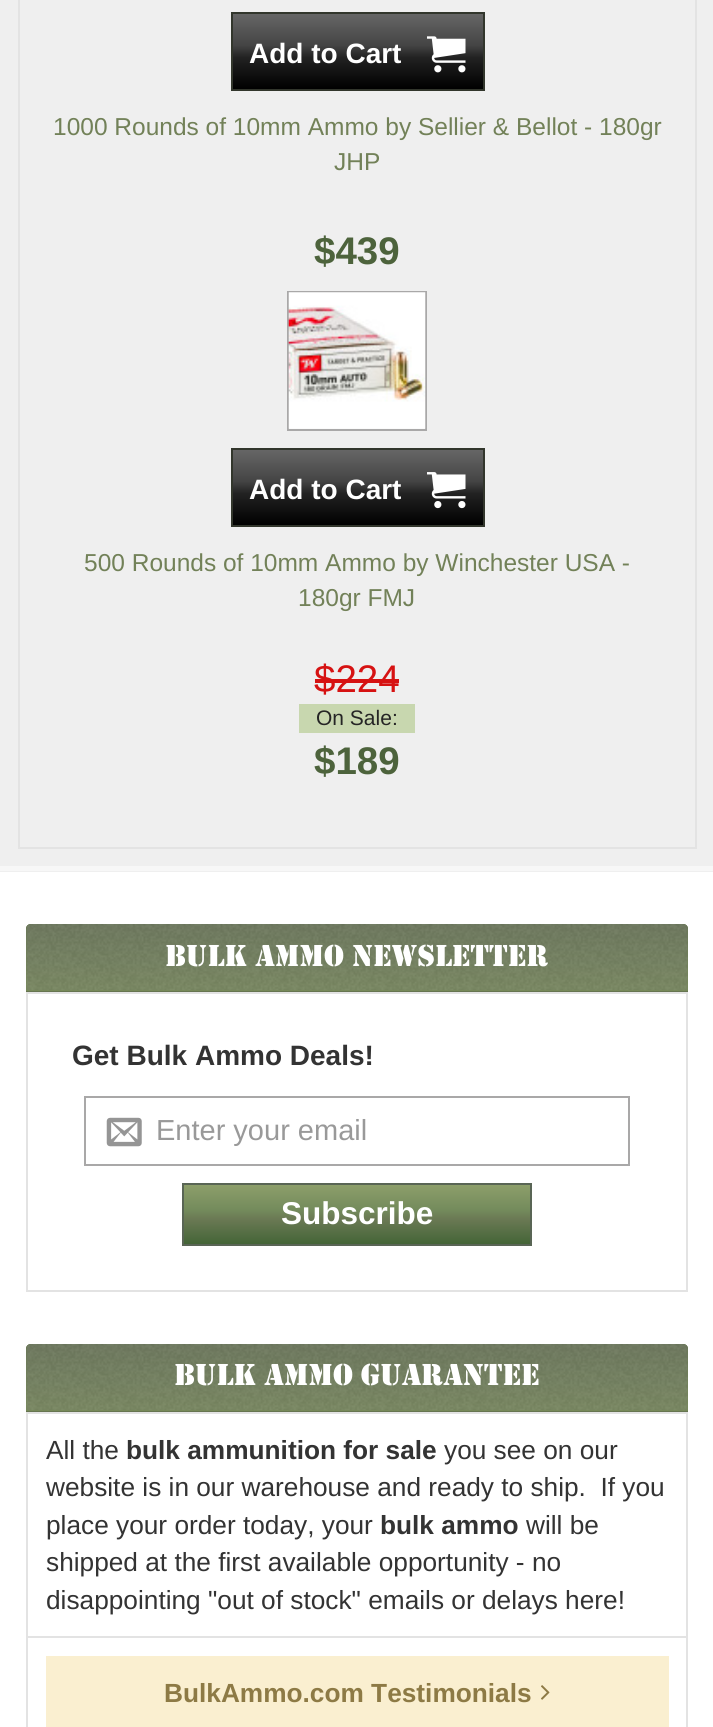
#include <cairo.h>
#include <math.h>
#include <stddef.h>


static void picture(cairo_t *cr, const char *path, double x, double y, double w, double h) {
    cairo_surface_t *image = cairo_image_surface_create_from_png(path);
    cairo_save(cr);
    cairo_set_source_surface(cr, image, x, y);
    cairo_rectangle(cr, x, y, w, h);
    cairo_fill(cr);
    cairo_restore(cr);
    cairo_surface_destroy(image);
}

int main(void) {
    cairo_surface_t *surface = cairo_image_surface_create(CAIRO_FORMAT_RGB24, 713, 1727);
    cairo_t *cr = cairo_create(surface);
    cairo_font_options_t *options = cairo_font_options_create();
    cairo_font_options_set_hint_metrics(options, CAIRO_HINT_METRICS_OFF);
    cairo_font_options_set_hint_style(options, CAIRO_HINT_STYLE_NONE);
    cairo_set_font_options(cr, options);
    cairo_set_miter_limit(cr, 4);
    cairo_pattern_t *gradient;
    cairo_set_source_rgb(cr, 1, 1, 1);
    cairo_paint(cr);
    cairo_set_source_rgb(cr, 0.937, 0.937, 0.937);
    cairo_rectangle(cr, 0, 0, 713, 872);
    cairo_fill(cr);
    cairo_set_source_rgb(cr, 0.965, 0.965, 0.965);
    cairo_rectangle(cr, 0, 866, 713, 5);
    cairo_fill(cr);
    cairo_rectangle(cr, 19, -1, 677, 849);
    cairo_set_source_rgb(cr, 0.89, 0.89, 0.89);
    cairo_stroke(cr);
    gradient = cairo_pattern_create_linear(358, 14, 358, 89);
    cairo_pattern_add_color_stop_rgba(gradient, 0, 0.4, 0.4, 0.4, 1);
    cairo_pattern_add_color_stop_rgba(gradient, 0.42, 0.267, 0.267, 0.267, 1);
    cairo_pattern_add_color_stop_rgba(gradient, 0.58, 0.133, 0.133, 0.133, 1);
    cairo_pattern_add_color_stop_rgba(gradient, 1, 0, 0, 0, 1);
    cairo_set_source(cr, gradient);
    cairo_pattern_destroy(gradient);
    cairo_rectangle(cr, 233, 14, 250, 75);
    cairo_fill(cr);
    cairo_rectangle(cr, 232, 13, 252, 77);
    cairo_set_source_rgb(cr, 0.196, 0.212, 0.173);
    cairo_stroke(cr);
    cairo_select_font_face(cr, "Liberation Sans", CAIRO_FONT_SLANT_NORMAL, CAIRO_FONT_WEIGHT_BOLD);
    cairo_set_font_size(cr, 28);
    cairo_set_source_rgb(cr, 1, 1, 1);
    cairo_move_to(cr, 249, 63);
    cairo_show_text(cr, "Add to Cart");
    picture(cr, "img1.png", 427, 36, 39, 37);
    cairo_select_font_face(cr, "Liberation Sans", CAIRO_FONT_SLANT_NORMAL, CAIRO_FONT_WEIGHT_NORMAL);
    cairo_set_font_size(cr, 24.5);
    cairo_set_source_rgb(cr, 0.447, 0.506, 0.345);
    cairo_move_to(cr, 53, 135);
    cairo_show_text(cr, "1000 Rounds of 10mm Ammo by Sellier & Bellot - 180gr");
    cairo_move_to(cr, 334, 170);
    cairo_show_text(cr, "JHP");
    cairo_select_font_face(cr, "Liberation Sans", CAIRO_FONT_SLANT_NORMAL, CAIRO_FONT_WEIGHT_BOLD);
    cairo_set_font_size(cr, 38.5);
    cairo_set_source_rgb(cr, 0.302, 0.388, 0.235);
    cairo_move_to(cr, 314, 264);
    cairo_show_text(cr, "$439");
    cairo_rectangle(cr, 288, 292, 138, 138);
    cairo_set_source_rgb(cr, 0.663, 0.659, 0.659);
    cairo_stroke(cr);
    picture(cr, "img2.png", 288, 292, 138, 137);
    gradient = cairo_pattern_create_linear(358, 450, 358, 525);
    cairo_pattern_add_color_stop_rgba(gradient, 0, 0.4, 0.4, 0.4, 1);
    cairo_pattern_add_color_stop_rgba(gradient, 0.42, 0.267, 0.267, 0.267, 1);
    cairo_pattern_add_color_stop_rgba(gradient, 0.58, 0.133, 0.133, 0.133, 1);
    cairo_pattern_add_color_stop_rgba(gradient, 1, 0, 0, 0, 1);
    cairo_set_source(cr, gradient);
    cairo_pattern_destroy(gradient);
    cairo_rectangle(cr, 233, 450, 250, 75);
    cairo_fill(cr);
    cairo_rectangle(cr, 232, 449, 252, 77);
    cairo_set_source_rgb(cr, 0.196, 0.212, 0.173);
    cairo_stroke(cr);
    cairo_set_font_size(cr, 28);
    cairo_set_source_rgb(cr, 1, 1, 1);
    cairo_move_to(cr, 249, 499);
    cairo_show_text(cr, "Add to Cart");
    picture(cr, "img3.png", 427, 472, 39, 37);
    cairo_select_font_face(cr, "Liberation Sans", CAIRO_FONT_SLANT_NORMAL, CAIRO_FONT_WEIGHT_NORMAL);
    cairo_set_font_size(cr, 24.5);
    cairo_set_source_rgb(cr, 0.447, 0.506, 0.345);
    cairo_move_to(cr, 84, 571);
    cairo_show_text(cr, "500 Rounds of 10mm Ammo by Winchester USA -");
    cairo_move_to(cr, 298, 606);
    cairo_show_text(cr, "180gr FMJ");
    cairo_set_font_size(cr, 38.5);
    cairo_set_source_rgb(cr, 0.839, 0.071, 0.071);
    cairo_move_to(cr, 314, 692);
    cairo_show_text(cr, "$224");
    cairo_rectangle(cr, 315, 679, 84, 4);
    cairo_fill(cr);
    cairo_set_source_rgb(cr, 0.784, 0.843, 0.686);
    cairo_rectangle(cr, 299, 704, 116, 29);
    cairo_fill(cr);
    cairo_set_font_size(cr, 21);
    cairo_set_source_rgb(cr, 0.145, 0.145, 0.145);
    cairo_move_to(cr, 316, 725);
    cairo_show_text(cr, "On Sale:");
    cairo_select_font_face(cr, "Liberation Sans", CAIRO_FONT_SLANT_NORMAL, CAIRO_FONT_WEIGHT_BOLD);
    cairo_set_font_size(cr, 38.5);
    cairo_set_source_rgb(cr, 0.302, 0.388, 0.235);
    cairo_move_to(cr, 314, 774);
    cairo_show_text(cr, "$189");
    cairo_set_source_rgb(cr, 0.4, 0.459, 0.318);
    cairo_new_path(cr);
    cairo_move_to(cr, 31, 924);
    cairo_line_to(cr, 683, 924);
    cairo_curve_to(cr, 686, 924, 688, 926, 688, 929);
    cairo_line_to(cr, 688, 992);
    cairo_line_to(cr, 26, 992);
    cairo_line_to(cr, 26, 929);
    cairo_curve_to(cr, 26, 926, 28, 924, 31, 924);
    cairo_close_path(cr);
    cairo_fill(cr);
    gradient = cairo_pattern_create_linear(357, 924, 357, 991);
    cairo_pattern_add_color_stop_rgba(gradient, 0, 0.4, 0.459, 0.318, 1);
    cairo_pattern_add_color_stop_rgba(gradient, 1, 0.463, 0.541, 0.337, 1);
    cairo_set_source(cr, gradient);
    cairo_pattern_destroy(gradient);
    cairo_new_path(cr);
    cairo_move_to(cr, 31, 924);
    cairo_line_to(cr, 683, 924);
    cairo_curve_to(cr, 686, 924, 688, 926, 688, 929);
    cairo_line_to(cr, 688, 991);
    cairo_line_to(cr, 26, 991);
    cairo_line_to(cr, 26, 929);
    cairo_curve_to(cr, 26, 926, 28, 924, 31, 924);
    cairo_close_path(cr);
    cairo_fill(cr);
    picture(cr, "img4.png", 26, 924, 662, 67);
    cairo_select_font_face(cr, "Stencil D", CAIRO_FONT_SLANT_NORMAL, CAIRO_FONT_WEIGHT_NORMAL);
    cairo_set_font_size(cr, 31.5);
    cairo_set_source_rgb(cr, 1, 1, 1);
    cairo_move_to(cr, 165, 966);
    cairo_show_text(cr, "Bulk Ammo Newsletter");
    cairo_rectangle(cr, 27, 993, 660, 298);
    cairo_set_source_rgb(cr, 0.89, 0.89, 0.89);
    cairo_stroke(cr);
    cairo_select_font_face(cr, "Liberation Sans", CAIRO_FONT_SLANT_NORMAL, CAIRO_FONT_WEIGHT_BOLD);
    cairo_set_font_size(cr, 28);
    cairo_set_source_rgb(cr, 0.2, 0.2, 0.2);
    cairo_move_to(cr, 72, 1065);
    cairo_show_text(cr, "Get Bulk Ammo Deals!");
    cairo_rectangle(cr, 85, 1097, 544, 68);
    cairo_set_source_rgb(cr, 0.663, 0.659, 0.659);
    cairo_stroke(cr);
    picture(cr, "img5.png", 106, 1117, 36, 30);
    cairo_select_font_face(cr, "Liberation Sans", CAIRO_FONT_SLANT_NORMAL, CAIRO_FONT_WEIGHT_NORMAL);
    cairo_set_font_size(cr, 29);
    cairo_set_source_rgb(cr, 0.6, 0.6, 0.6);
    cairo_move_to(cr, 156, 1140);
    cairo_show_text(cr, "Enter your email");
    gradient = cairo_pattern_create_linear(357, 1185, 357, 1244);
    cairo_pattern_add_color_stop_rgba(gradient, 0, 0.549, 0.62, 0.416, 1);
    cairo_pattern_add_color_stop_rgba(gradient, 0.42, 0.455, 0.545, 0.361, 1);
    cairo_pattern_add_color_stop_rgba(gradient, 0.58, 0.416, 0.475, 0.329, 1);
    cairo_pattern_add_color_stop_rgba(gradient, 1, 0.267, 0.396, 0.216, 1);
    cairo_set_source(cr, gradient);
    cairo_pattern_destroy(gradient);
    cairo_rectangle(cr, 184, 1185, 346, 59);
    cairo_fill(cr);
    cairo_rectangle(cr, 183, 1184, 348, 61);
    cairo_set_source_rgb(cr, 0.349, 0.396, 0.333);
    cairo_stroke(cr);
    cairo_select_font_face(cr, "Liberation Sans", CAIRO_FONT_SLANT_NORMAL, CAIRO_FONT_WEIGHT_BOLD);
    cairo_set_font_size(cr, 31.5);
    cairo_set_source_rgb(cr, 1, 1, 1);
    cairo_move_to(cr, 281, 1224);
    cairo_show_text(cr, "Subscribe");
    cairo_set_source_rgb(cr, 0.4, 0.459, 0.318);
    cairo_new_path(cr);
    cairo_move_to(cr, 31, 1344);
    cairo_line_to(cr, 683, 1344);
    cairo_curve_to(cr, 686, 1344, 688, 1346, 688, 1349);
    cairo_line_to(cr, 688, 1412);
    cairo_line_to(cr, 26, 1412);
    cairo_line_to(cr, 26, 1349);
    cairo_curve_to(cr, 26, 1346, 28, 1344, 31, 1344);
    cairo_close_path(cr);
    cairo_fill(cr);
    gradient = cairo_pattern_create_linear(357, 1344, 357, 1411);
    cairo_pattern_add_color_stop_rgba(gradient, 0, 0.4, 0.459, 0.318, 1);
    cairo_pattern_add_color_stop_rgba(gradient, 1, 0.463, 0.541, 0.337, 1);
    cairo_set_source(cr, gradient);
    cairo_pattern_destroy(gradient);
    cairo_new_path(cr);
    cairo_move_to(cr, 31, 1344);
    cairo_line_to(cr, 683, 1344);
    cairo_curve_to(cr, 686, 1344, 688, 1346, 688, 1349);
    cairo_line_to(cr, 688, 1411);
    cairo_line_to(cr, 26, 1411);
    cairo_line_to(cr, 26, 1349);
    cairo_curve_to(cr, 26, 1346, 28, 1344, 31, 1344);
    cairo_close_path(cr);
    cairo_fill(cr);
    picture(cr, "img6.png", 26, 1344, 662, 67);
    cairo_select_font_face(cr, "Stencil D", CAIRO_FONT_SLANT_NORMAL, CAIRO_FONT_WEIGHT_NORMAL);
    cairo_set_source_rgb(cr, 1, 1, 1);
    cairo_move_to(cr, 174, 1385);
    cairo_show_text(cr, "Bulk Ammo Guarantee");
    cairo_rectangle(cr, 27, 1413, 660, 224);
    cairo_set_source_rgb(cr, 0.89, 0.89, 0.89);
    cairo_stroke(cr);
    cairo_select_font_face(cr, "Liberation Sans", CAIRO_FONT_SLANT_NORMAL, CAIRO_FONT_WEIGHT_NORMAL);
    cairo_set_font_size(cr, 26.25);
    cairo_set_source_rgb(cr, 0.2, 0.2, 0.2);
    cairo_move_to(cr, 46, 1459);
    cairo_show_text(cr, "All the");
    cairo_select_font_face(cr, "Liberation Sans", CAIRO_FONT_SLANT_NORMAL, CAIRO_FONT_WEIGHT_BOLD);
    cairo_move_to(cr, 126, 1459);
    cairo_show_text(cr, "bulk ammunition for sale");
    cairo_select_font_face(cr, "Liberation Sans", CAIRO_FONT_SLANT_NORMAL, CAIRO_FONT_WEIGHT_NORMAL);
    cairo_move_to(cr, 444, 1459);
    cairo_show_text(cr, "you see on our");
    cairo_move_to(cr, 46, 1496);
    cairo_show_text(cr, "website is in our warehouse and ready to ship.  If you");
    cairo_move_to(cr, 46, 1534);
    cairo_show_text(cr, "place your order today, your");
    cairo_select_font_face(cr, "Liberation Sans", CAIRO_FONT_SLANT_NORMAL, CAIRO_FONT_WEIGHT_BOLD);
    cairo_move_to(cr, 380, 1534);
    cairo_show_text(cr, "bulk ammo");
    cairo_select_font_face(cr, "Liberation Sans", CAIRO_FONT_SLANT_NORMAL, CAIRO_FONT_WEIGHT_NORMAL);
    cairo_move_to(cr, 526, 1534);
    cairo_show_text(cr, "will be");
    cairo_move_to(cr, 46, 1571);
    cairo_show_text(cr, "shipped at the first available opportunity - no");
    cairo_move_to(cr, 46, 1609);
    cairo_show_text(cr, "disappointing \"out of stock\" emails or delays here!");
    cairo_set_source_rgb(cr, 0.89, 0.89, 0.89);
    cairo_rectangle(cr, 686, 1638, 2, 89);
    cairo_fill(cr);
    cairo_rectangle(cr, 26, 1638, 2, 89);
    cairo_fill(cr);
    cairo_set_source_rgb(cr, 0.98, 0.937, 0.816);
    cairo_rectangle(cr, 46, 1656, 623, 71);
    cairo_fill(cr);
    cairo_select_font_face(cr, "Liberation Sans", CAIRO_FONT_SLANT_NORMAL, CAIRO_FONT_WEIGHT_BOLD);
    cairo_set_source_rgb(cr, 0.553, 0.478, 0.271);
    cairo_move_to(cr, 164, 1702);
    cairo_show_text(cr, "BulkAmmo.com Testimonials");
    picture(cr, "img7.png", 541, 1685, 9, 15);
    cairo_surface_write_to_png(surface, "page.png");
    cairo_font_options_destroy(options);
    cairo_destroy(cr);
    cairo_surface_destroy(surface);
    return 0;
}
